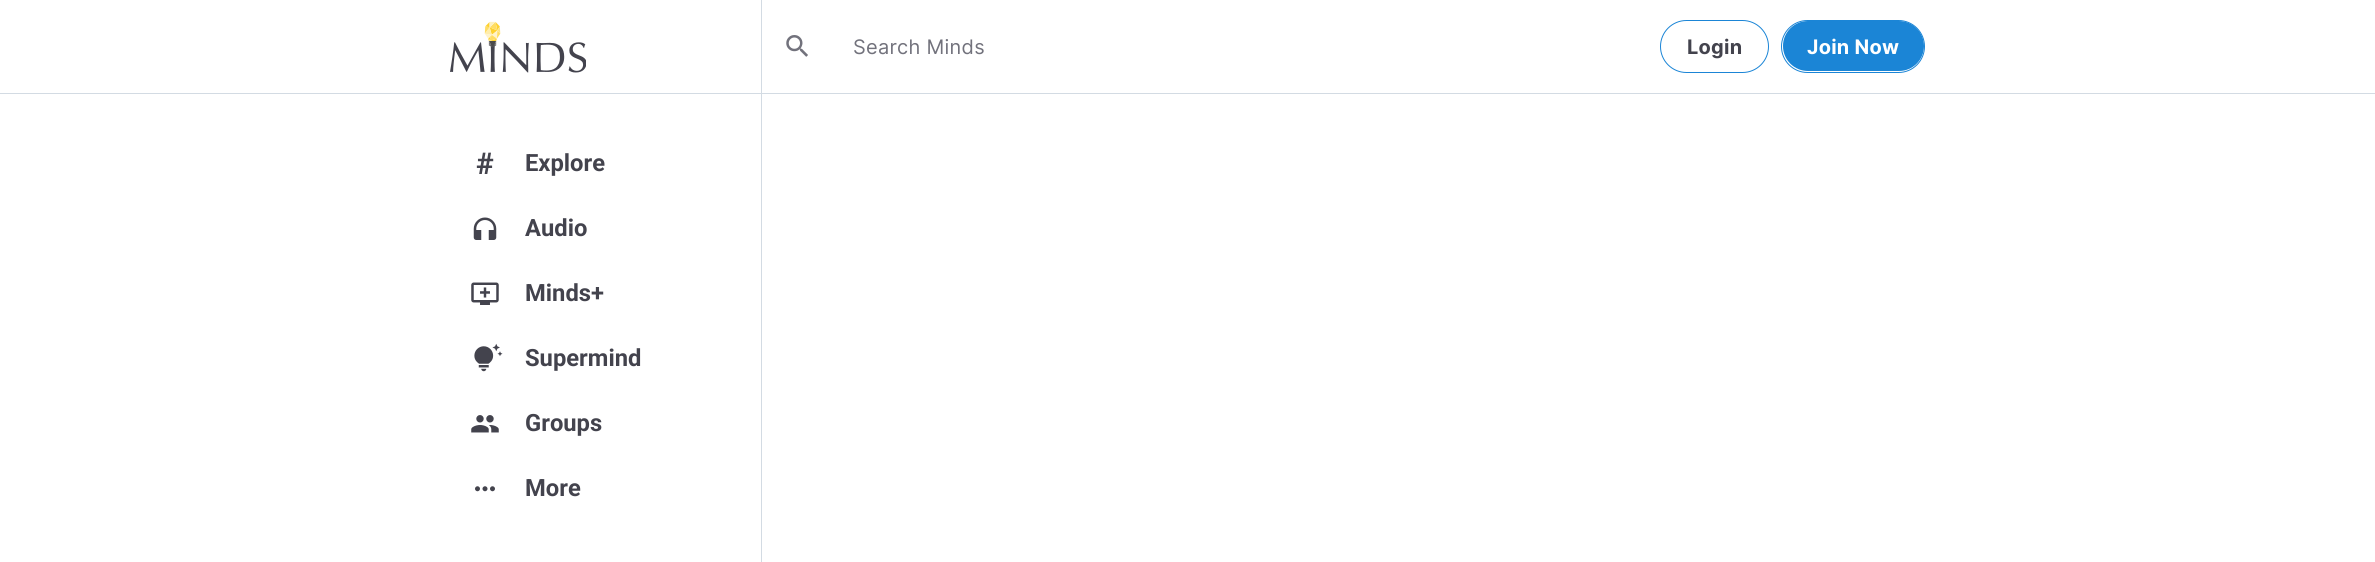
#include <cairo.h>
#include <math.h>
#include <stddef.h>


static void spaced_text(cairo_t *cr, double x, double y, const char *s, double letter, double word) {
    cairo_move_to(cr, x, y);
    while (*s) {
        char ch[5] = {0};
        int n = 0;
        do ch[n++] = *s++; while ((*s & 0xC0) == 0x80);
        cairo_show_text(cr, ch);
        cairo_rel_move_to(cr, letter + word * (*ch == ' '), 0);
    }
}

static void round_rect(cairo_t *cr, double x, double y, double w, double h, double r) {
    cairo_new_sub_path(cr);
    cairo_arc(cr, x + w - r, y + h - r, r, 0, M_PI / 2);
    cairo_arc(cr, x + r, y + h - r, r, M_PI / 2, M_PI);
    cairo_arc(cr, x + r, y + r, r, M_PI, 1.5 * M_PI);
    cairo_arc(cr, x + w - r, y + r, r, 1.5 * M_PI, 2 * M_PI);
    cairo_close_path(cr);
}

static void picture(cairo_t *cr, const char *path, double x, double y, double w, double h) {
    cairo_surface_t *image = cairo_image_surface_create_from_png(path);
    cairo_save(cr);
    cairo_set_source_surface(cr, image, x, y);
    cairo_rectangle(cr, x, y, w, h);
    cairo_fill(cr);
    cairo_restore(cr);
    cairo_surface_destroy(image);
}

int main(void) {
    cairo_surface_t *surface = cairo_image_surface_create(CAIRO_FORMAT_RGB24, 2375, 562);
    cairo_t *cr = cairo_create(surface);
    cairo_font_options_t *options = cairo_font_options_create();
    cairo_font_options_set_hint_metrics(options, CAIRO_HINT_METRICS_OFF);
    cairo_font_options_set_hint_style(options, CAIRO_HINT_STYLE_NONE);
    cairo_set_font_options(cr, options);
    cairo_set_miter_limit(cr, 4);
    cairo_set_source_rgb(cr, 1, 1, 1);
    cairo_paint(cr);
    cairo_set_source_rgb(cr, 0.827, 0.859, 0.89);
    cairo_rectangle(cr, 0, 93, 2375, 1);
    cairo_fill(cr);
    cairo_rectangle(cr, 761, 0, 1, 93);
    cairo_fill(cr);
    picture(cr, "img1.png", 450, 21, 136, 52);
    picture(cr, "img2.png", 786, 35, 22, 22);
    cairo_select_font_face(cr, "Inter", CAIRO_FONT_SLANT_NORMAL, CAIRO_FONT_WEIGHT_NORMAL);
    cairo_set_font_size(cr, 20);
    cairo_set_source_rgb(cr, 0.447, 0.447, 0.486);
    spaced_text(cr, 853, 54, "Search Minds", 0.25, 0);
    round_rect(cr, 1660.5, 20.5, 108, 52, 26);
    cairo_set_source_rgb(cr, 0.106, 0.522, 0.839);
    cairo_set_line_width(cr, 1);
    cairo_stroke(cr);
    cairo_select_font_face(cr, "Inter", CAIRO_FONT_SLANT_NORMAL, CAIRO_FONT_WEIGHT_BOLD);
    cairo_set_source_rgb(cr, 0.263, 0.263, 0.302);
    spaced_text(cr, 1687, 54, "Login", 0.25, 0);
    cairo_set_source_rgb(cr, 0.106, 0.522, 0.839);
    round_rect(cr, 1783, 21, 141, 50, 25);
    cairo_fill(cr);
    round_rect(cr, 1781.5, 20.5, 143, 52, 26);
    cairo_stroke(cr);
    cairo_set_source_rgb(cr, 1, 1, 1);
    spaced_text(cr, 1807, 54, "Join Now", 0.25, 0);
    cairo_set_source_rgb(cr, 0.827, 0.859, 0.89);
    cairo_rectangle(cr, 761, 94, 1, 468);
    cairo_fill(cr);
    cairo_select_font_face(cr, "Roboto", CAIRO_FONT_SLANT_NORMAL, CAIRO_FONT_WEIGHT_BOLD);
    cairo_set_font_size(cr, 30);
    cairo_set_source_rgb(cr, 0.263, 0.263, 0.302);
    cairo_move_to(cr, 476, 174);
    cairo_show_text(cr, "#");
    cairo_set_font_size(cr, 23.75);
    cairo_move_to(cr, 525, 171);
    cairo_show_text(cr, "Explore");
    picture(cr, "img3.png", 473, 217, 24, 23);
    cairo_move_to(cr, 525, 236);
    cairo_show_text(cr, "Audio");
    picture(cr, "img4.png", 471, 282, 28, 23);
    cairo_move_to(cr, 525, 301);
    cairo_show_text(cr, "Minds+");
    picture(cr, "img5.png", 474, 343, 29, 29);
    cairo_move_to(cr, 525, 366);
    cairo_show_text(cr, "Supermind");
    picture(cr, "img6.png", 471, 415, 28, 18);
    cairo_move_to(cr, 525, 431);
    cairo_show_text(cr, "Groups");
    picture(cr, "img7.png", 475, 486, 20, 6);
    cairo_move_to(cr, 525, 496);
    cairo_show_text(cr, "More");
    cairo_surface_write_to_png(surface, "page.png");
    cairo_font_options_destroy(options);
    cairo_destroy(cr);
    cairo_surface_destroy(surface);
    return 0;
}
